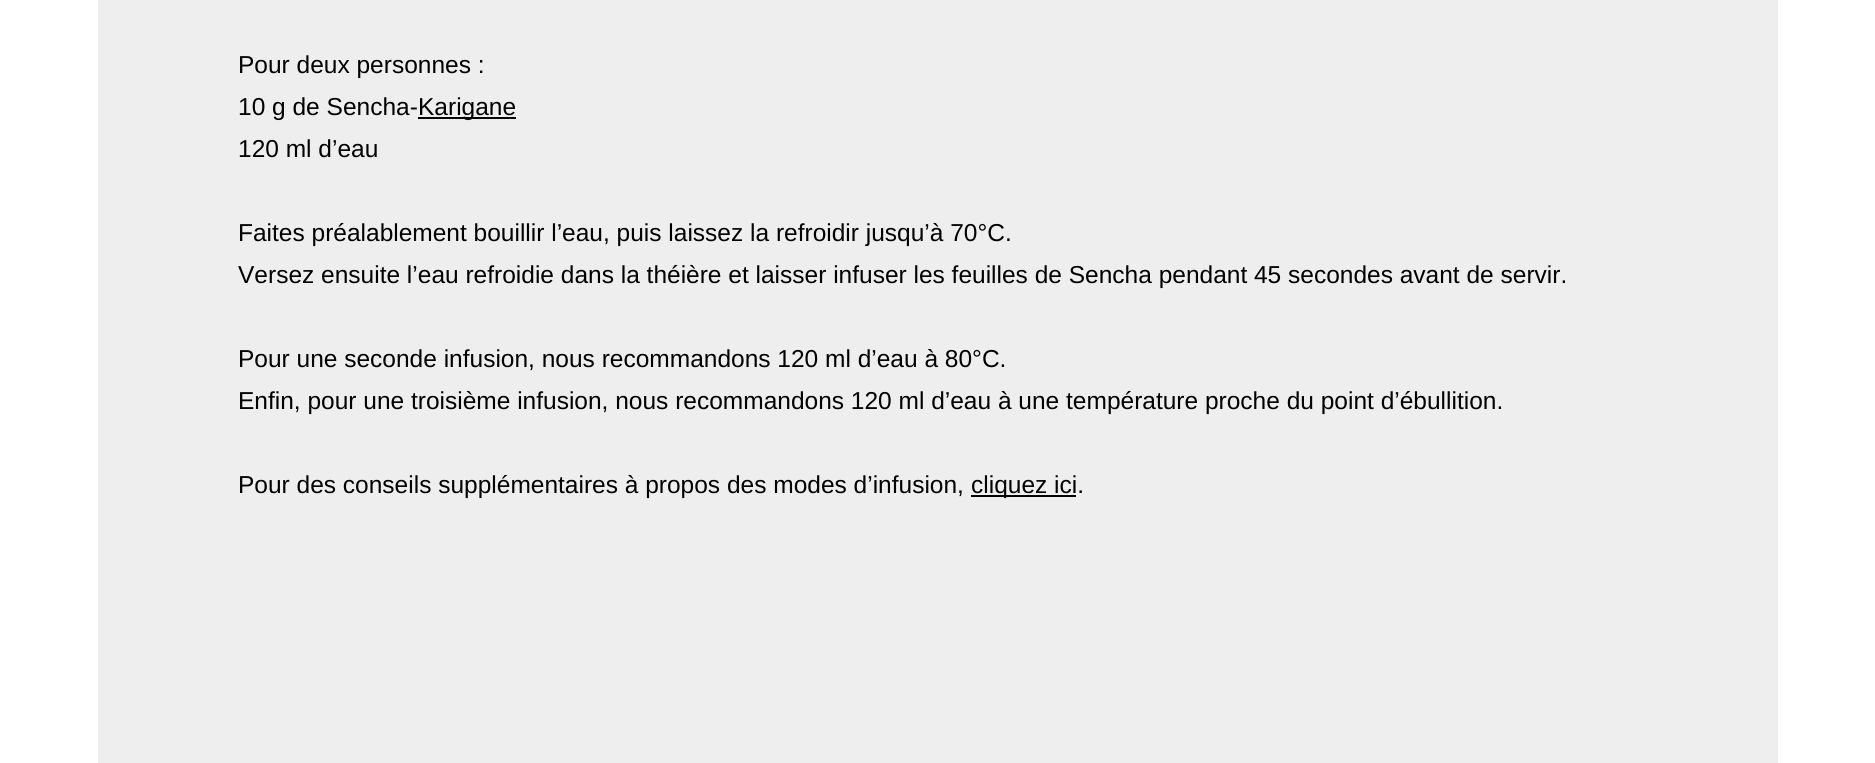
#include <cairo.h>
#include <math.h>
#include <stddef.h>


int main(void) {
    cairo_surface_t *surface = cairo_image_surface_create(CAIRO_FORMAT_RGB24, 1875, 763);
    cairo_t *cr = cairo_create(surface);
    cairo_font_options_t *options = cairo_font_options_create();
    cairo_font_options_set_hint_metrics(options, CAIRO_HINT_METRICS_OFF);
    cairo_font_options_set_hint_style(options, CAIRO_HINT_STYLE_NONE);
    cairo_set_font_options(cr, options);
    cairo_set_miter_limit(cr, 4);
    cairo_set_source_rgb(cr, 1, 1, 1);
    cairo_paint(cr);
    cairo_set_source_rgb(cr, 0.933, 0.933, 0.933);
    cairo_rectangle(cr, 98, 0, 1680, 763);
    cairo_fill(cr);
    cairo_select_font_face(cr, "Liberation Sans", CAIRO_FONT_SLANT_NORMAL, CAIRO_FONT_WEIGHT_NORMAL);
    cairo_set_font_size(cr, 24.5);
    cairo_set_source_rgb(cr, 0, 0, 0);
    cairo_move_to(cr, 238, 73);
    cairo_show_text(cr, "Pour deux personnes :");
    cairo_move_to(cr, 238, 115);
    cairo_show_text(cr, "10 g de Sencha-");
    cairo_rectangle(cr, 418, 117, 98, 2);
    cairo_fill(cr);
    cairo_move_to(cr, 418, 115);
    cairo_show_text(cr, "Karigane");
    cairo_move_to(cr, 238, 157);
    cairo_show_text(cr, "120 ml d’eau");
    cairo_move_to(cr, 238, 241);
    cairo_show_text(cr, "Faites préalablement bouillir l’eau, puis laissez la refroidir jusqu’à 70°C.");
    cairo_move_to(cr, 238, 283);
    cairo_show_text(cr, "Versez ensuite l’eau refroidie dans la théière et laisser infuser les feuilles de Sencha pendant 45 secondes avant de servir.");
    cairo_move_to(cr, 238, 367);
    cairo_show_text(cr, "Pour une seconde infusion, nous recommandons 120 ml d’eau à 80°C.");
    cairo_move_to(cr, 238, 409);
    cairo_show_text(cr, "Enfin, pour une troisième infusion, nous recommandons 120 ml d’eau à une température proche du point d’ébullition.");
    cairo_move_to(cr, 238, 493);
    cairo_show_text(cr, "Pour des conseils supplémentaires à propos des modes d’infusion,");
    cairo_rectangle(cr, 971, 495, 105, 2);
    cairo_fill(cr);
    cairo_move_to(cr, 971, 493);
    cairo_show_text(cr, "cliquez ici.");
    cairo_surface_write_to_png(surface, "page.png");
    cairo_font_options_destroy(options);
    cairo_destroy(cr);
    cairo_surface_destroy(surface);
    return 0;
}
